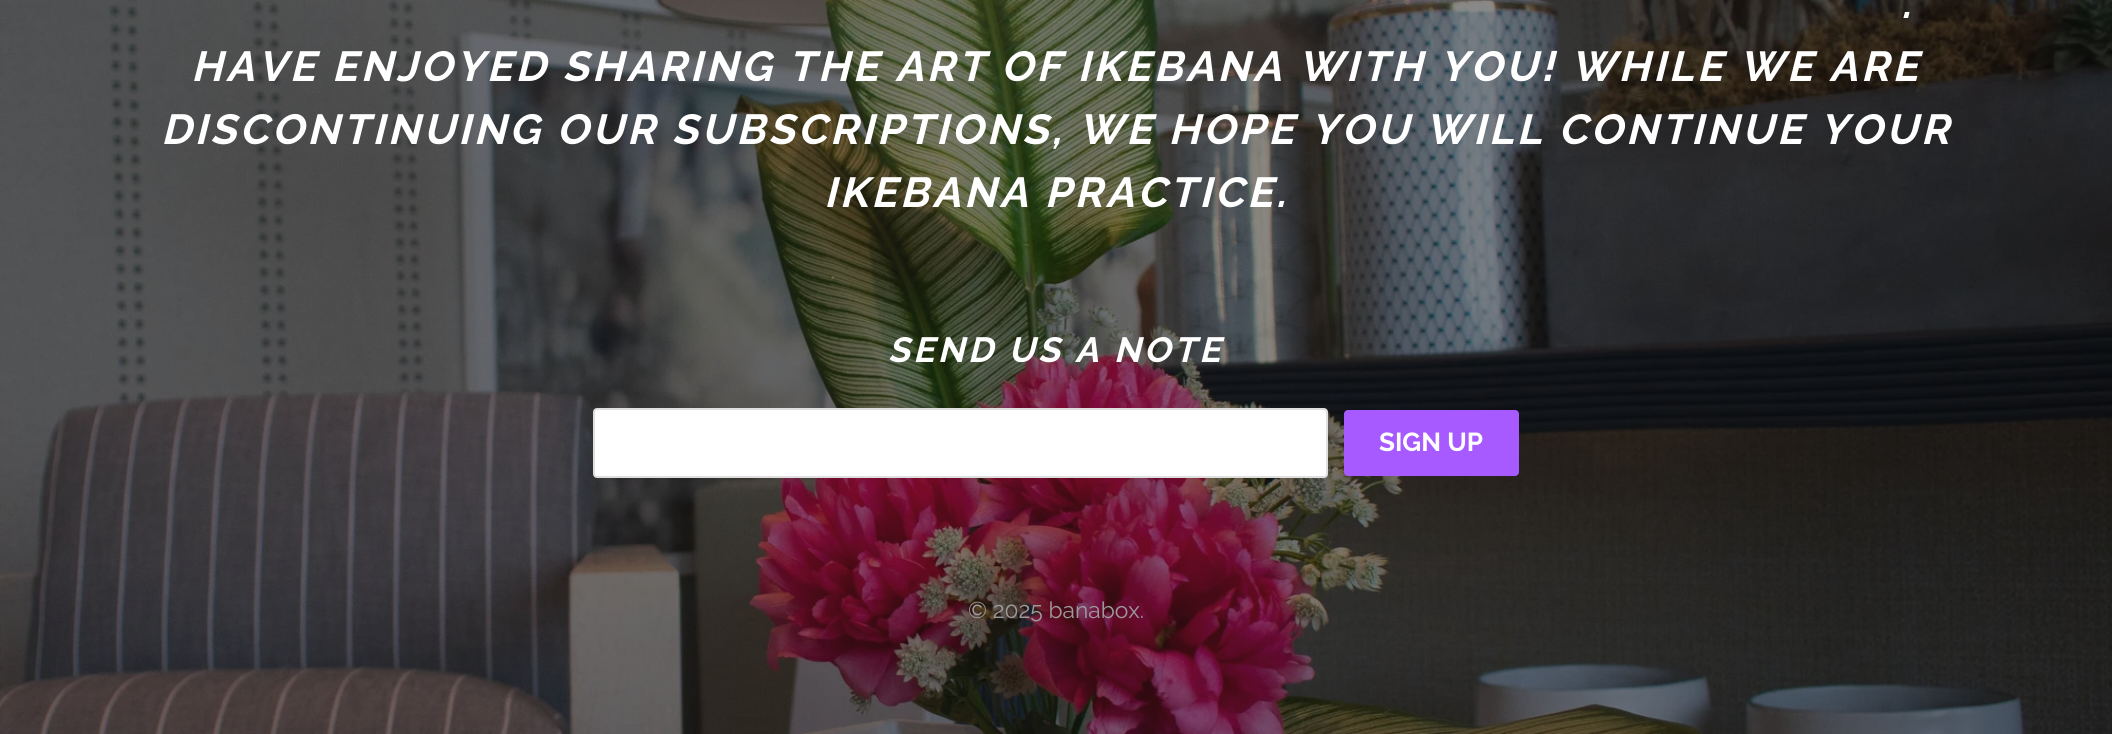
#include <cairo.h>
#include <math.h>
#include <stddef.h>


static void spaced_text(cairo_t *cr, double x, double y, const char *s, double letter, double word) {
    cairo_move_to(cr, x, y);
    while (*s) {
        char ch[5] = {0};
        int n = 0;
        do ch[n++] = *s++; while ((*s & 0xC0) == 0x80);
        cairo_show_text(cr, ch);
        cairo_rel_move_to(cr, letter + word * (*ch == ' '), 0);
    }
}

static void round_rect(cairo_t *cr, double x, double y, double w, double h, double r) {
    cairo_new_sub_path(cr);
    cairo_arc(cr, x + w - r, y + h - r, r, 0, M_PI / 2);
    cairo_arc(cr, x + r, y + h - r, r, M_PI / 2, M_PI);
    cairo_arc(cr, x + r, y + r, r, M_PI, 1.5 * M_PI);
    cairo_arc(cr, x + w - r, y + r, r, 1.5 * M_PI, 2 * M_PI);
    cairo_close_path(cr);
}

static void picture(cairo_t *cr, const char *path, double x, double y, double w, double h) {
    cairo_surface_t *image = cairo_image_surface_create_from_png(path);
    cairo_save(cr);
    cairo_set_source_surface(cr, image, x, y);
    cairo_rectangle(cr, x, y, w, h);
    cairo_fill(cr);
    cairo_restore(cr);
    cairo_surface_destroy(image);
}

int main(void) {
    cairo_surface_t *surface = cairo_image_surface_create(CAIRO_FORMAT_RGB24, 2112, 734);
    cairo_t *cr = cairo_create(surface);
    cairo_font_options_t *options = cairo_font_options_create();
    cairo_font_options_set_hint_metrics(options, CAIRO_HINT_METRICS_OFF);
    cairo_font_options_set_hint_style(options, CAIRO_HINT_STYLE_NONE);
    cairo_set_font_options(cr, options);
    cairo_set_miter_limit(cr, 4);
    cairo_set_source_rgb(cr, 1, 1, 1);
    cairo_paint(cr);
    picture(cr, "img1.png", 0, 0, 2112, 734);
    cairo_select_font_face(cr, "Raleway", CAIRO_FONT_SLANT_ITALIC, CAIRO_FONT_WEIGHT_BOLD);
    cairo_set_font_size(cr, 42);
    cairo_set_source_rgb(cr, 1, 1, 1);
    spaced_text(cr, 1901, 18, ".", 3.5, 0);
    spaced_text(cr, 191, 81, "HAVE ENJOYED SHARING THE ART OF IKEBANA WITH YOU! WHILE WE ARE", 3.5, 0);
    spaced_text(cr, 161, 144, "DISCONTINUING OUR SUBSCRIPTIONS, WE HOPE YOU WILL CONTINUE YOUR", 3.5, 0);
    spaced_text(cr, 824, 207, "IKEBANA PRACTICE.", 3.5, 0);
    cairo_set_font_size(cr, 35);
    spaced_text(cr, 888, 362, "SEND US A NOTE", 3.5, 0);
    round_rect(cr, 594, 409, 733, 68, 3);
    cairo_fill_preserve(cr);
    cairo_set_source_rgb(cr, 0.875, 0.875, 0.875);
    cairo_stroke(cr);
    cairo_set_source_rgb(cr, 0.651, 0.353, 1);
    round_rect(cr, 1344, 410, 175, 66, 4);
    cairo_fill(cr);
    cairo_select_font_face(cr, "Raleway", CAIRO_FONT_SLANT_NORMAL, CAIRO_FONT_WEIGHT_BOLD);
    cairo_set_font_size(cr, 26);
    cairo_set_source_rgb(cr, 1, 1, 1);
    cairo_move_to(cr, 1379, 451);
    cairo_show_text(cr, "SIGN UP");
    cairo_select_font_face(cr, "Raleway", CAIRO_FONT_SLANT_NORMAL, CAIRO_FONT_WEIGHT_NORMAL);
    cairo_set_font_size(cr, 22.75);
    cairo_set_source_rgb(cr, 0.612, 0.612, 0.612);
    cairo_move_to(cr, 968, 618);
    cairo_show_text(cr, "© 2025 banabox.");
    cairo_surface_write_to_png(surface, "page.png");
    cairo_font_options_destroy(options);
    cairo_destroy(cr);
    cairo_surface_destroy(surface);
    return 0;
}
